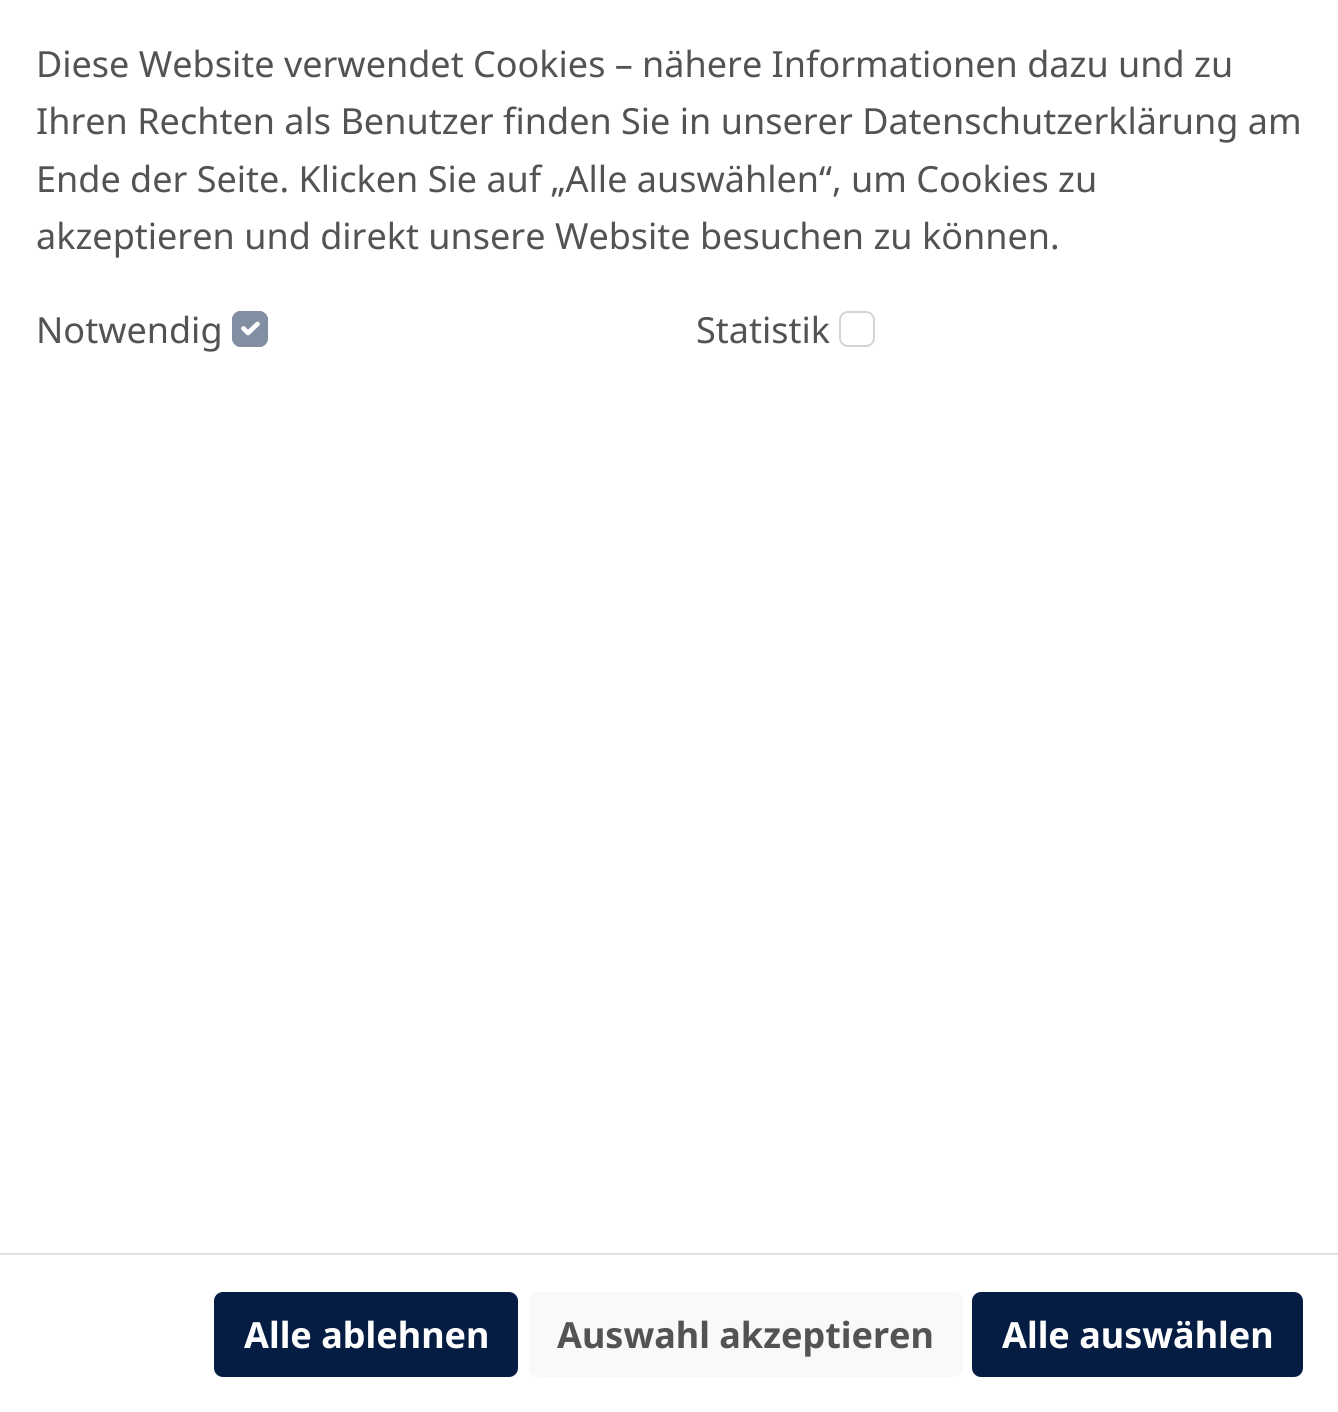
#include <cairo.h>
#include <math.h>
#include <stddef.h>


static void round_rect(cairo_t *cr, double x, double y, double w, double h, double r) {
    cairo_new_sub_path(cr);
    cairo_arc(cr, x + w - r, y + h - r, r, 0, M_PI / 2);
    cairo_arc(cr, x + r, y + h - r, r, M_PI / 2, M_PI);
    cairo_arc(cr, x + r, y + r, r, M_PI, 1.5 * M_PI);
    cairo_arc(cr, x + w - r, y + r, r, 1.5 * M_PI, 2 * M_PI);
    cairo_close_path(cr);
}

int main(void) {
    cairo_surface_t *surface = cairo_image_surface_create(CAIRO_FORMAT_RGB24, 1338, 1412);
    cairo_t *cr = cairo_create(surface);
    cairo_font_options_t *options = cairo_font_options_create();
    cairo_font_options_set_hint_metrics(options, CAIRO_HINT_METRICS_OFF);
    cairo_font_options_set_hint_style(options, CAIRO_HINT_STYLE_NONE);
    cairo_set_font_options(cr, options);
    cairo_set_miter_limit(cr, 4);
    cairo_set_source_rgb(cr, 1, 1, 1);
    cairo_paint(cr);
    cairo_select_font_face(cr, "Noto Sans", CAIRO_FONT_SLANT_NORMAL, CAIRO_FONT_WEIGHT_NORMAL);
    cairo_set_font_size(cr, 36);
    cairo_set_source_rgb(cr, 0.325, 0.325, 0.325);
    cairo_move_to(cr, 36, 77);
    cairo_show_text(cr, "Diese Website verwendet Cookies – nähere Informationen dazu und zu");
    cairo_move_to(cr, 36, 134);
    cairo_show_text(cr, "Ihren Rechten als Benutzer finden Sie in unserer Datenschutzerklärung am");
    cairo_move_to(cr, 36, 192);
    cairo_show_text(cr, "Ende der Seite. Klicken Sie auf „Alle auswählen“, um Cookies zu");
    cairo_move_to(cr, 36, 249);
    cairo_show_text(cr, "akzeptieren und direkt unsere Website besuchen zu können.");
    cairo_move_to(cr, 36, 343);
    cairo_show_text(cr, "Notwendig");
    cairo_set_source_rgb(cr, 0.51, 0.557, 0.631);
    round_rect(cr, 232, 311, 36, 36, 9);
    cairo_fill(cr);
    cairo_new_path(cr);
    cairo_move_to(cr, 243.5, 328.5);
    cairo_line_to(cr, 248, 333);
    cairo_line_to(cr, 257.5, 324);
    cairo_set_source_rgb(cr, 1, 1, 1);
    cairo_set_line_width(cr, 4.7);
    cairo_set_line_cap(cr, CAIRO_LINE_CAP_ROUND);
    cairo_set_line_join(cr, CAIRO_LINE_JOIN_ROUND);
    cairo_stroke(cr);
    round_rect(cr, 233, 312, 34, 34, 8);
    cairo_set_source_rgb(cr, 0.51, 0.557, 0.631);
    cairo_set_line_width(cr, 2);
    cairo_set_line_cap(cr, CAIRO_LINE_CAP_BUTT);
    cairo_set_line_join(cr, CAIRO_LINE_JOIN_MITER);
    cairo_stroke(cr);
    cairo_set_source_rgb(cr, 0.325, 0.325, 0.325);
    cairo_move_to(cr, 696, 343);
    cairo_show_text(cr, "Statistik");
    round_rect(cr, 840, 312, 34, 34, 8);
    cairo_set_source_rgb(cr, 0.831, 0.831, 0.831);
    cairo_stroke(cr);
    cairo_set_source_rgb(cr, 0.871, 0.886, 0.902);
    cairo_rectangle(cr, 0, 1253, 1338, 2);
    cairo_fill(cr);
    cairo_set_source_rgb(cr, 0.02, 0.11, 0.263);
    round_rect(cr, 215, 1293, 302, 83, 8);
    cairo_fill_preserve(cr);
    cairo_stroke(cr);
    cairo_select_font_face(cr, "Noto Sans", CAIRO_FONT_SLANT_NORMAL, CAIRO_FONT_WEIGHT_BOLD);
    cairo_set_source_rgb(cr, 1, 1, 1);
    cairo_move_to(cr, 244, 1348);
    cairo_show_text(cr, "Alle ablehnen");
    cairo_set_source_rgb(cr, 0.973, 0.976, 0.98);
    round_rect(cr, 529, 1292, 434, 85, 9);
    cairo_fill(cr);
    cairo_set_source_rgb(cr, 0.325, 0.325, 0.325);
    cairo_move_to(cr, 557, 1348);
    cairo_show_text(cr, "Auswahl akzeptieren");
    cairo_set_source_rgb(cr, 0.02, 0.11, 0.263);
    round_rect(cr, 973, 1293, 329, 83, 8);
    cairo_fill_preserve(cr);
    cairo_stroke(cr);
    cairo_set_source_rgb(cr, 1, 1, 1);
    cairo_move_to(cr, 1002, 1348);
    cairo_show_text(cr, "Alle auswählen");
    cairo_surface_write_to_png(surface, "page.png");
    cairo_font_options_destroy(options);
    cairo_destroy(cr);
    cairo_surface_destroy(surface);
    return 0;
}
